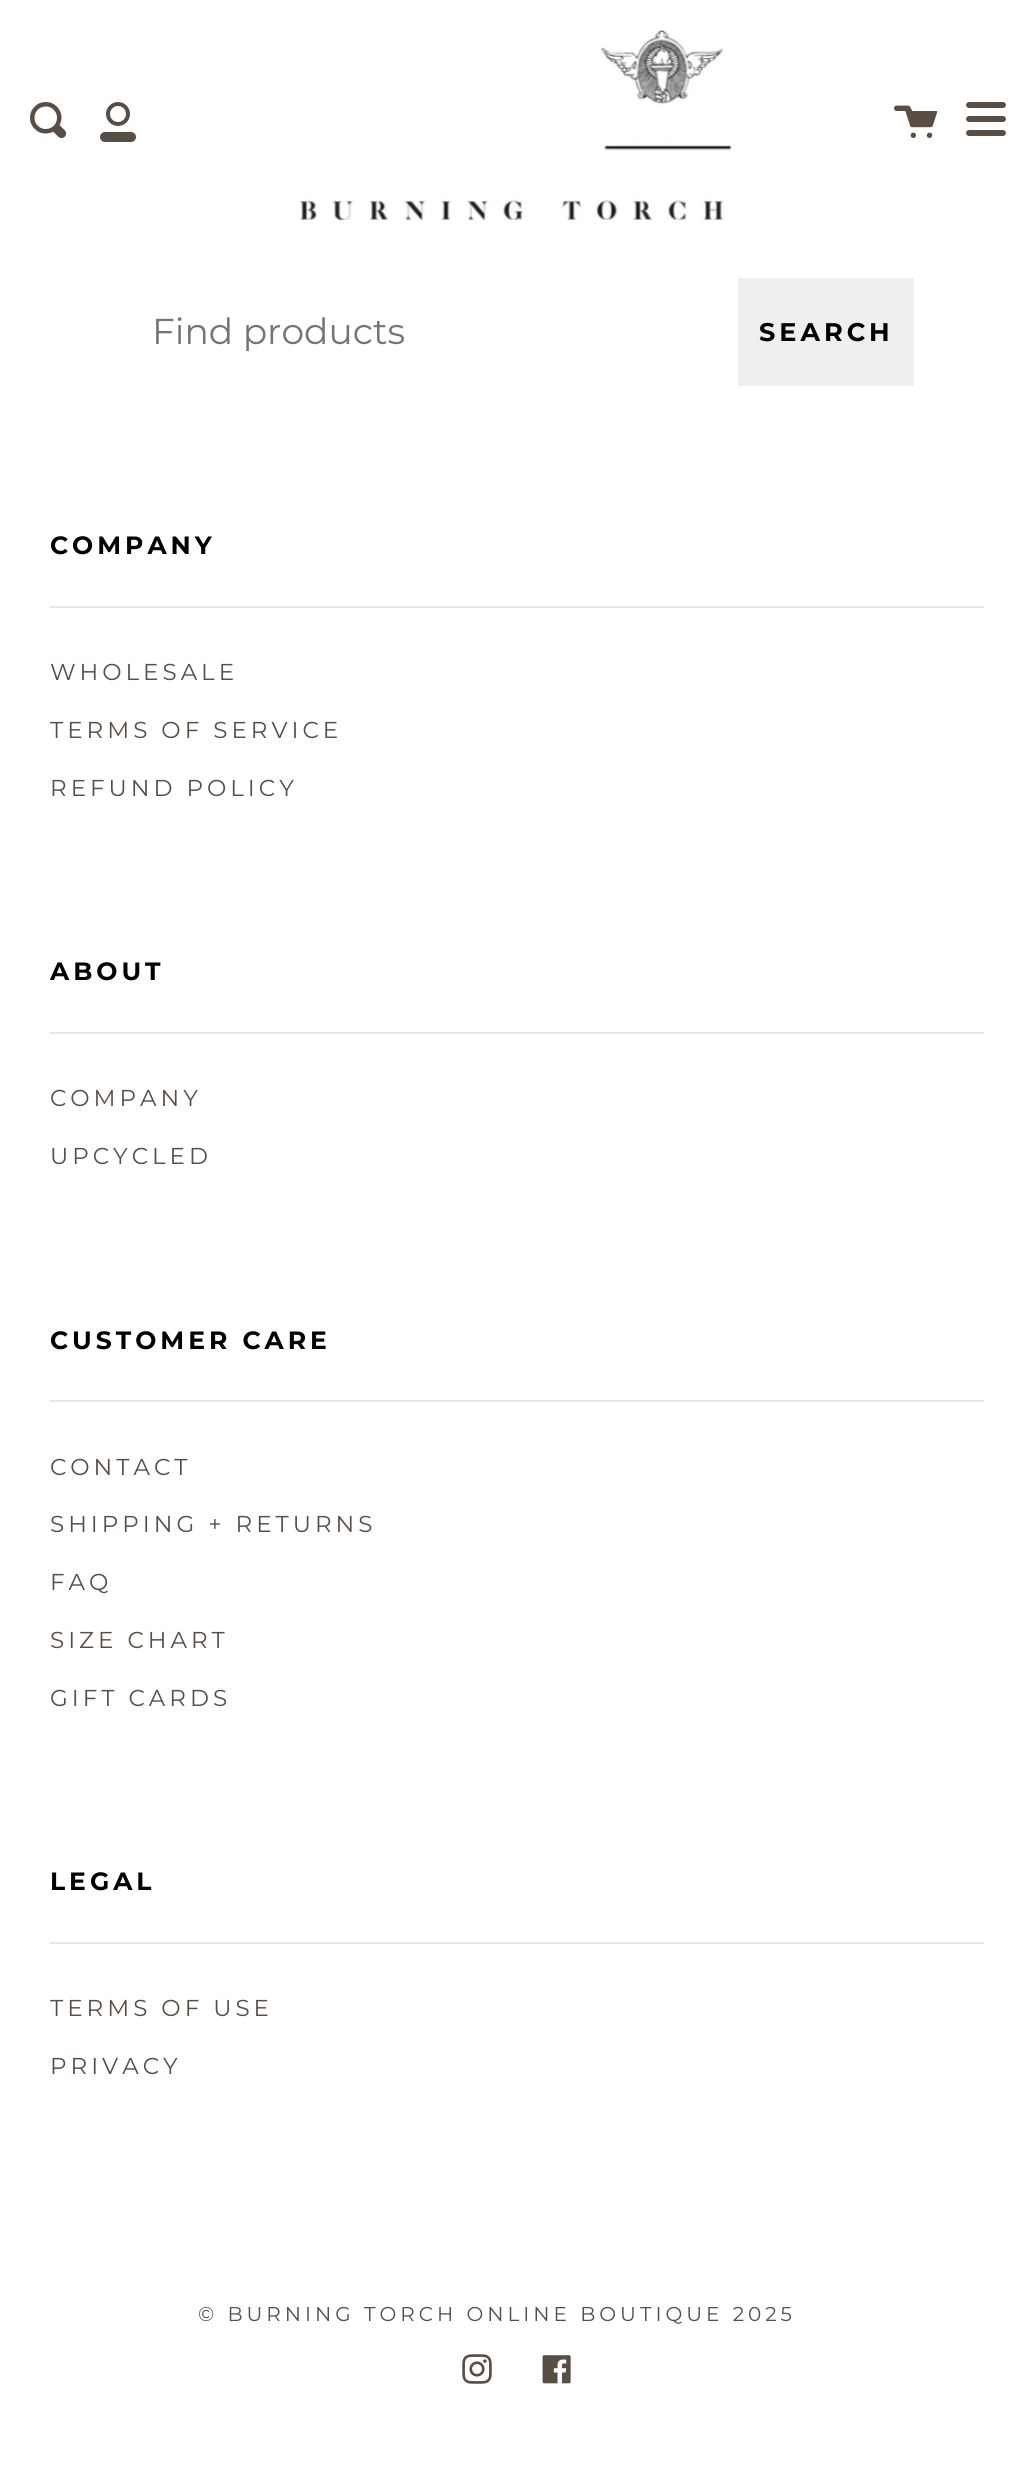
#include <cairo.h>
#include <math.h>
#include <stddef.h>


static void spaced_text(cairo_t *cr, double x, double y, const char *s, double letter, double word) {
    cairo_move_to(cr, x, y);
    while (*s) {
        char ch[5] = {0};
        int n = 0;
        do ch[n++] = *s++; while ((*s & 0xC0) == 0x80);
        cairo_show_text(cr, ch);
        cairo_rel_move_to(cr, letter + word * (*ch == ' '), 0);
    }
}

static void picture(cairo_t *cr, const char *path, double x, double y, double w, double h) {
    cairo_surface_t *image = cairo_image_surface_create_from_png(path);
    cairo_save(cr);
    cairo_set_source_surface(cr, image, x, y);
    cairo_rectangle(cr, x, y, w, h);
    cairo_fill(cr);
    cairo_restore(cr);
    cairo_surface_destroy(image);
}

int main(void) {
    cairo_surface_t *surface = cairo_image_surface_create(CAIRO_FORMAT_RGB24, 1034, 2492);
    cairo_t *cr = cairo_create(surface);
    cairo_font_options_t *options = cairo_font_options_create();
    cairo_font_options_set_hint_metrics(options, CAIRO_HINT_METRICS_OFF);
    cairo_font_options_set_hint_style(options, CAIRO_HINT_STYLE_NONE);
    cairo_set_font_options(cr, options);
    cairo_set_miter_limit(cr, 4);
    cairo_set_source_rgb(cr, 1, 1, 1);
    cairo_paint(cr);
    picture(cr, "img1.png", 299, 29, 433, 191);
    picture(cr, "img2.png", 30, 102, 37, 37);
    picture(cr, "img3.png", 100, 102, 36, 40);
    picture(cr, "img4.png", 894, 105, 44, 33);
    cairo_set_source_rgb(cr, 0.345, 0.306, 0.271);
    cairo_new_path(cr);
    cairo_move_to(cr, 969, 102);
    cairo_line_to(cr, 1000, 102);
    cairo_line_to(cr, 1000, 108);
    cairo_line_to(cr, 969, 108);
    cairo_curve_to(cr, 967.5, 108, 966, 106.5, 966, 105);
    cairo_curve_to(cr, 966, 103.5, 967.5, 102, 969, 102);
    cairo_close_path(cr);
    cairo_fill(cr);
    cairo_new_path(cr);
    cairo_move_to(cr, 972, 102);
    cairo_line_to(cr, 1003, 102);
    cairo_curve_to(cr, 1004.5, 102, 1006, 103.5, 1006, 105);
    cairo_curve_to(cr, 1006, 106.5, 1004.5, 108, 1003, 108);
    cairo_line_to(cr, 972, 108);
    cairo_close_path(cr);
    cairo_fill(cr);
    cairo_new_path(cr);
    cairo_move_to(cr, 969, 116);
    cairo_line_to(cr, 1000, 116);
    cairo_line_to(cr, 1000, 122);
    cairo_line_to(cr, 969, 122);
    cairo_curve_to(cr, 967.5, 122, 966, 120.5, 966, 119);
    cairo_curve_to(cr, 966, 117.5, 967.5, 116, 969, 116);
    cairo_close_path(cr);
    cairo_fill(cr);
    cairo_new_path(cr);
    cairo_move_to(cr, 972, 116);
    cairo_line_to(cr, 1003, 116);
    cairo_curve_to(cr, 1004.5, 116, 1006, 117.5, 1006, 119);
    cairo_curve_to(cr, 1006, 120.5, 1004.5, 122, 1003, 122);
    cairo_line_to(cr, 972, 122);
    cairo_close_path(cr);
    cairo_fill(cr);
    cairo_new_path(cr);
    cairo_move_to(cr, 969, 130);
    cairo_line_to(cr, 1000, 130);
    cairo_line_to(cr, 1000, 136);
    cairo_line_to(cr, 969, 136);
    cairo_curve_to(cr, 967.5, 136, 966, 134.5, 966, 133);
    cairo_curve_to(cr, 966, 131.5, 967.5, 130, 969, 130);
    cairo_close_path(cr);
    cairo_fill(cr);
    cairo_new_path(cr);
    cairo_move_to(cr, 972, 130);
    cairo_line_to(cr, 1003, 130);
    cairo_curve_to(cr, 1004.5, 130, 1006, 131.5, 1006, 133);
    cairo_curve_to(cr, 1006, 134.5, 1004.5, 136, 1003, 136);
    cairo_line_to(cr, 972, 136);
    cairo_close_path(cr);
    cairo_fill(cr);
    cairo_select_font_face(cr, "Montserrat", CAIRO_FONT_SLANT_NORMAL, CAIRO_FONT_WEIGHT_NORMAL);
    cairo_set_font_size(cr, 36);
    cairo_set_source_rgb(cr, 0.459, 0.459, 0.459);
    cairo_move_to(cr, 152, 344);
    cairo_show_text(cr, "Find products");
    cairo_set_source_rgb(cr, 0.937, 0.937, 0.937);
    cairo_rectangle(cr, 738, 278, 176, 108);
    cairo_fill(cr);
    cairo_select_font_face(cr, "Montserrat", CAIRO_FONT_SLANT_NORMAL, CAIRO_FONT_WEIGHT_BOLD);
    cairo_set_font_size(cr, 25.5);
    cairo_set_source_rgb(cr, 0, 0, 0);
    spaced_text(cr, 759, 341, "SEARCH", 4, 0);
    cairo_set_font_size(cr, 25);
    spaced_text(cr, 50, 554, "COMPANY", 4, 0);
    cairo_set_source_rgb(cr, 0.902, 0.902, 0.902);
    cairo_rectangle(cr, 50, 606, 934, 2);
    cairo_fill(cr);
    cairo_select_font_face(cr, "Montserrat", CAIRO_FONT_SLANT_NORMAL, CAIRO_FONT_WEIGHT_NORMAL);
    cairo_set_font_size(cr, 23);
    cairo_set_source_rgb(cr, 0.345, 0.306, 0.271);
    spaced_text(cr, 50, 680, "WHOLESALE", 4, 0);
    spaced_text(cr, 50, 738, "TERMS OF SERVICE", 4, 0);
    spaced_text(cr, 50, 796, "REFUND POLICY", 4, 0);
    cairo_select_font_face(cr, "Montserrat", CAIRO_FONT_SLANT_NORMAL, CAIRO_FONT_WEIGHT_BOLD);
    cairo_set_font_size(cr, 25);
    cairo_set_source_rgb(cr, 0, 0, 0);
    spaced_text(cr, 50, 980, "ABOUT", 4, 0);
    cairo_set_source_rgb(cr, 0.902, 0.902, 0.902);
    cairo_rectangle(cr, 50, 1032, 934, 2);
    cairo_fill(cr);
    cairo_select_font_face(cr, "Montserrat", CAIRO_FONT_SLANT_NORMAL, CAIRO_FONT_WEIGHT_NORMAL);
    cairo_set_font_size(cr, 23);
    cairo_set_source_rgb(cr, 0.345, 0.306, 0.271);
    spaced_text(cr, 50, 1106, "COMPANY", 4, 0);
    spaced_text(cr, 50, 1164, "UPCYCLED", 4, 0);
    cairo_select_font_face(cr, "Montserrat", CAIRO_FONT_SLANT_NORMAL, CAIRO_FONT_WEIGHT_BOLD);
    cairo_set_font_size(cr, 25);
    cairo_set_source_rgb(cr, 0, 0, 0);
    spaced_text(cr, 50, 1349, "CUSTOMER CARE", 4, 0);
    cairo_set_source_rgb(cr, 0.902, 0.902, 0.902);
    cairo_rectangle(cr, 50, 1400, 934, 2);
    cairo_fill(cr);
    cairo_select_font_face(cr, "Montserrat", CAIRO_FONT_SLANT_NORMAL, CAIRO_FONT_WEIGHT_NORMAL);
    cairo_set_font_size(cr, 23);
    cairo_set_source_rgb(cr, 0.345, 0.306, 0.271);
    spaced_text(cr, 50, 1475, "CONTACT", 4, 0);
    spaced_text(cr, 50, 1532, "SHIPPING + RETURNS", 4, 0);
    spaced_text(cr, 50, 1590, "FAQ", 4, 0);
    spaced_text(cr, 50, 1648, "SIZE CHART", 4, 0);
    spaced_text(cr, 50, 1706, "GIFT CARDS", 4, 0);
    cairo_select_font_face(cr, "Montserrat", CAIRO_FONT_SLANT_NORMAL, CAIRO_FONT_WEIGHT_BOLD);
    cairo_set_font_size(cr, 25);
    cairo_set_source_rgb(cr, 0, 0, 0);
    spaced_text(cr, 50, 1890, "LEGAL", 4, 0);
    cairo_set_source_rgb(cr, 0.902, 0.902, 0.902);
    cairo_rectangle(cr, 50, 1942, 934, 2);
    cairo_fill(cr);
    cairo_select_font_face(cr, "Montserrat", CAIRO_FONT_SLANT_NORMAL, CAIRO_FONT_WEIGHT_NORMAL);
    cairo_set_font_size(cr, 23);
    cairo_set_source_rgb(cr, 0.345, 0.306, 0.271);
    spaced_text(cr, 50, 2016, "TERMS OF USE", 4, 0);
    spaced_text(cr, 50, 2074, "PRIVACY", 4, 0);
    cairo_set_font_size(cr, 20);
    spaced_text(cr, 198, 2321, "© BURNING TORCH ONLINE BOUTIQUE 2025", 4, 0);
    picture(cr, "img5.png", 462, 2354, 30, 30);
    picture(cr, "img6.png", 542, 2355, 29, 29);
    cairo_surface_write_to_png(surface, "page.png");
    cairo_font_options_destroy(options);
    cairo_destroy(cr);
    cairo_surface_destroy(surface);
    return 0;
}
